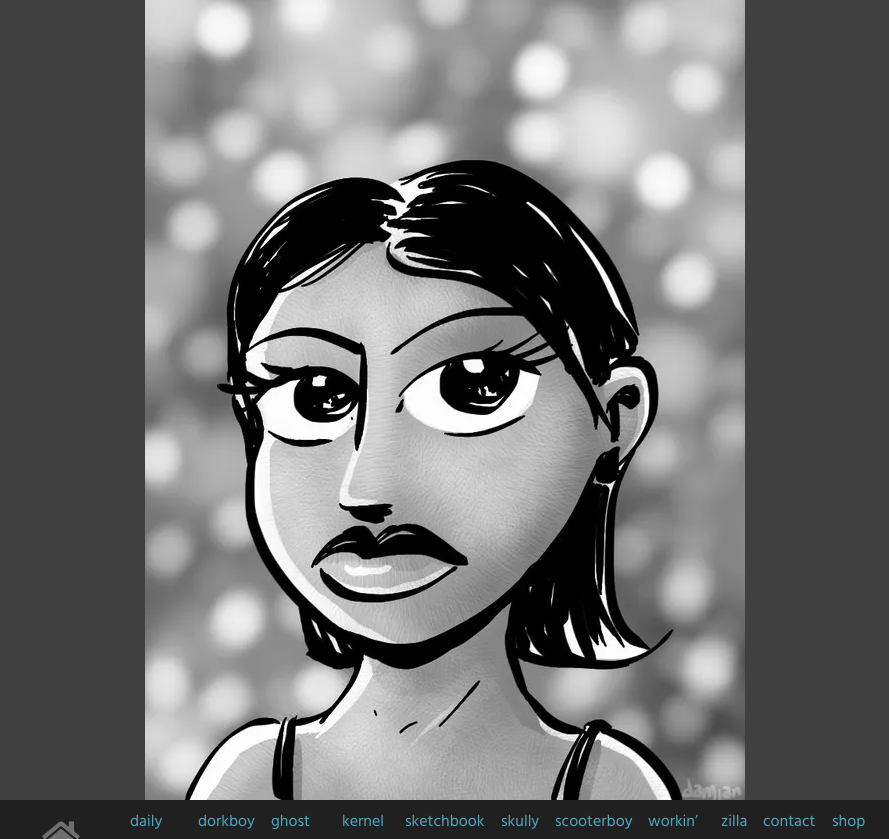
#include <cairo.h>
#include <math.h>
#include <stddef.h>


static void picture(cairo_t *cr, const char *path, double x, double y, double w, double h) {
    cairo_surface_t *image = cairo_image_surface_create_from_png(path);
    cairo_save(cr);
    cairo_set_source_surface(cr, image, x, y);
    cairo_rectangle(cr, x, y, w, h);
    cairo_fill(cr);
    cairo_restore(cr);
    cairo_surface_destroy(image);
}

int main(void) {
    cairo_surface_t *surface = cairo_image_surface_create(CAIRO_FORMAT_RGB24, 889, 839);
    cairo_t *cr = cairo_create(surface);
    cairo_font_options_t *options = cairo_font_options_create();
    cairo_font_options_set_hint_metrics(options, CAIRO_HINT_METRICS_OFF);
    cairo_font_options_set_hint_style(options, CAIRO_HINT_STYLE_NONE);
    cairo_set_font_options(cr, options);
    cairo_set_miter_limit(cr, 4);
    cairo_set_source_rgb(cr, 0.251, 0.251, 0.251);
    cairo_paint(cr);
    picture(cr, "img1.png", 145, 0, 600, 800);
    cairo_set_source_rgb(cr, 0.125, 0.125, 0.125);
    cairo_rectangle(cr, 0, 800, 889, 39);
    cairo_fill(cr);
    picture(cr, "img2.png", 42, 821, 38, 18);
    cairo_select_font_face(cr, "Hind", CAIRO_FONT_SLANT_NORMAL, CAIRO_FONT_WEIGHT_NORMAL);
    cairo_set_font_size(cr, 16);
    cairo_set_source_rgb(cr, 0.306, 0.659, 0.749);
    cairo_move_to(cr, 130, 826);
    cairo_show_text(cr, "daily");
    cairo_move_to(cr, 198, 826);
    cairo_show_text(cr, "dorkboy");
    cairo_move_to(cr, 271, 826);
    cairo_show_text(cr, "ghost");
    cairo_move_to(cr, 342, 826);
    cairo_show_text(cr, "kernel");
    cairo_move_to(cr, 405, 826);
    cairo_show_text(cr, "sketchbook");
    cairo_move_to(cr, 501, 826);
    cairo_show_text(cr, "skully");
    cairo_move_to(cr, 555, 826);
    cairo_show_text(cr, "scooterboy");
    cairo_move_to(cr, 648, 826);
    cairo_show_text(cr, "workin’");
    cairo_move_to(cr, 721, 826);
    cairo_show_text(cr, "zilla");
    cairo_move_to(cr, 763, 826);
    cairo_show_text(cr, "contact");
    cairo_move_to(cr, 832, 826);
    cairo_show_text(cr, "shop");
    cairo_surface_write_to_png(surface, "page.png");
    cairo_font_options_destroy(options);
    cairo_destroy(cr);
    cairo_surface_destroy(surface);
    return 0;
}
